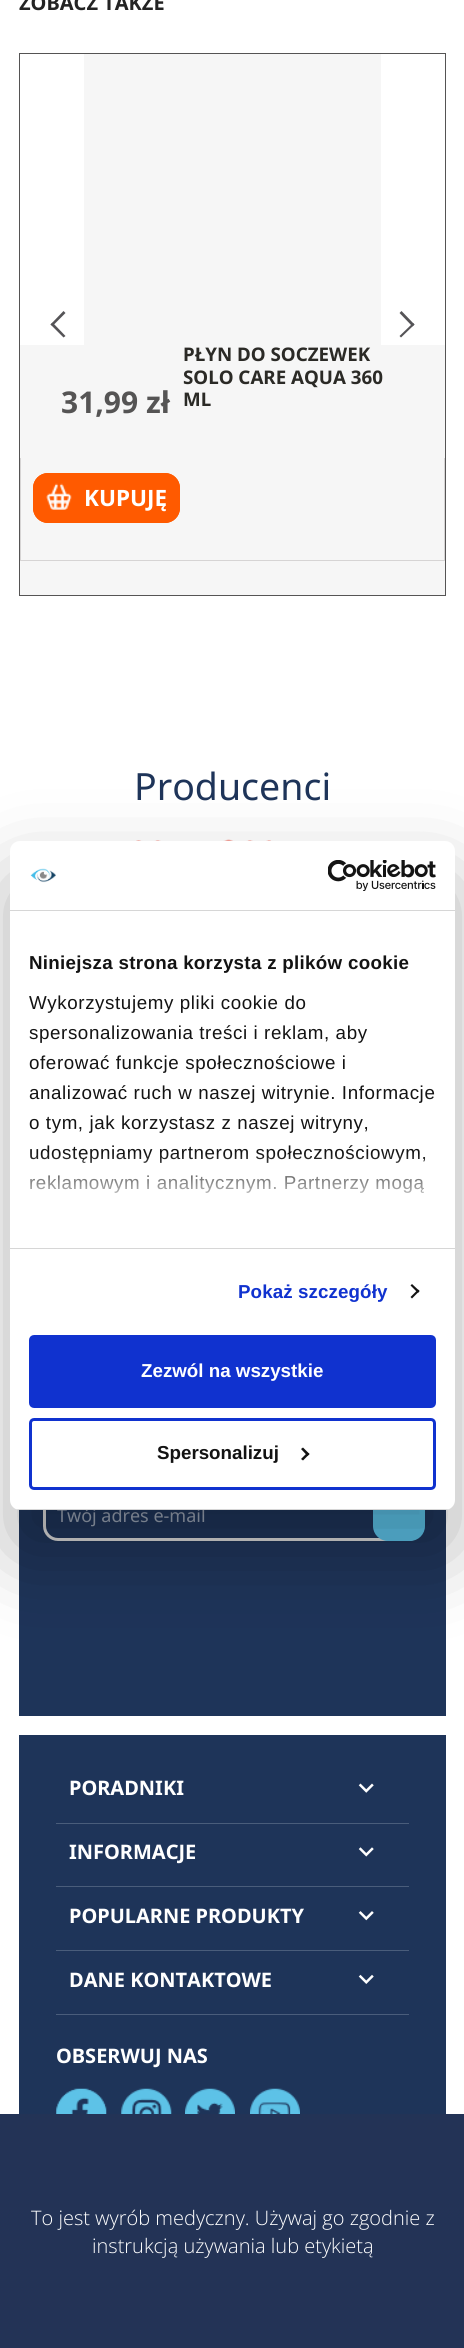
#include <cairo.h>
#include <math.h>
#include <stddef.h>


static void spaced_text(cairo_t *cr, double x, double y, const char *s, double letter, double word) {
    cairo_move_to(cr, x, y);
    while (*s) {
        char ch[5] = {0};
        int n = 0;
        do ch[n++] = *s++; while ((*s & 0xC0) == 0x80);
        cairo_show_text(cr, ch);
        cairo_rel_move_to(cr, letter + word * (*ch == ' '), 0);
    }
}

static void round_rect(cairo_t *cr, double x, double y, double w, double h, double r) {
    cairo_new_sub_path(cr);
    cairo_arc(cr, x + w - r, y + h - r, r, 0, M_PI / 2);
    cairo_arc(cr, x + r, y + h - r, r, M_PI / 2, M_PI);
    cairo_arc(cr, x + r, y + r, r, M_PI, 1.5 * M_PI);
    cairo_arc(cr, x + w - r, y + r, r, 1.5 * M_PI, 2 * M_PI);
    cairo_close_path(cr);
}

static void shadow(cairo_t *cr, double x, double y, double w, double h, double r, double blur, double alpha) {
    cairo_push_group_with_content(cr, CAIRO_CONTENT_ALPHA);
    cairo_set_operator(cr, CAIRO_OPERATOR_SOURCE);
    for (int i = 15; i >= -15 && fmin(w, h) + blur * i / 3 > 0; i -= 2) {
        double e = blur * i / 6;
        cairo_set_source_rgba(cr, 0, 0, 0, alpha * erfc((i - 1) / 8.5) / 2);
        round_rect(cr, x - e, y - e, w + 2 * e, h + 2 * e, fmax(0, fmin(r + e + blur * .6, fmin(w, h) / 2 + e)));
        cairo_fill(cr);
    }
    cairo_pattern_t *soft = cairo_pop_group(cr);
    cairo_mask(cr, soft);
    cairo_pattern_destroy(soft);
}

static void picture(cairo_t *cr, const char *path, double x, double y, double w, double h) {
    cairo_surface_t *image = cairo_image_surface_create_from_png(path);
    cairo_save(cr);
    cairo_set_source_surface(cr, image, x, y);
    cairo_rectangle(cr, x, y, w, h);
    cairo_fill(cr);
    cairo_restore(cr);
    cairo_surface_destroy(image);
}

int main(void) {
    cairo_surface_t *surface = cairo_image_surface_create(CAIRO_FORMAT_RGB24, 464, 2348);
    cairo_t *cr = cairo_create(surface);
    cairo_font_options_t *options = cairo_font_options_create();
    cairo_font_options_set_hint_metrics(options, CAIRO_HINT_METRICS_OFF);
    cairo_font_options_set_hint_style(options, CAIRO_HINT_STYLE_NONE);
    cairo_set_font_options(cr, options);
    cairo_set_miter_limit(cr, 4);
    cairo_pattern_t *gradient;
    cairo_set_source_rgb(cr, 1, 1, 1);
    cairo_paint(cr);
    cairo_select_font_face(cr, "Noto Sans", CAIRO_FONT_SLANT_NORMAL, CAIRO_FONT_WEIGHT_BOLD);
    cairo_set_font_size(cr, 20);
    cairo_set_source_rgb(cr, 0.137, 0.137, 0.137);
    cairo_move_to(cr, 19, 10);
    cairo_show_text(cr, "ZOBACZ TAKŻE");
    cairo_set_source_rgb(cr, 0.961, 0.961, 0.961);
    cairo_rectangle(cr, 20, 458, 425, 137);
    cairo_fill(cr);
    cairo_rectangle(cr, 19.5, 53.5, 426, 542);
    cairo_set_source_rgb(cr, 0.333, 0.329, 0.329);
    cairo_set_line_width(cr, 1);
    cairo_stroke(cr);
    cairo_save(cr);
    cairo_rectangle(cr, 20, 54, 425, 541);
    cairo_clip(cr);
    cairo_rectangle(cr, -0.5, 53.5, 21, 507);
    cairo_set_source_rgb(cr, 0.839, 0.831, 0.831);
    cairo_stroke(cr);
    cairo_rectangle(cr, 19.5, 53.5, 426, 507);
    cairo_stroke(cr);
    cairo_rectangle(cr, 444.5, 53.5, 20, 507);
    cairo_stroke(cr);
    cairo_restore(cr);
    cairo_set_source_rgb(cr, 1, 1, 1);
    cairo_rectangle(cr, 20, 54, 425, 291);
    cairo_fill(cr);
    cairo_set_source_rgb(cr, 0.333, 0.329, 0.341);
    cairo_new_path(cr);
    cairo_move_to(cr, 65.5, 336);
    cairo_line_to(cr, 63.5, 337.5);
    cairo_line_to(cr, 50.5, 324.5);
    cairo_line_to(cr, 52.5, 322.5);
    cairo_close_path(cr);
    cairo_fill(cr);
    cairo_new_path(cr);
    cairo_move_to(cr, 65.5, 313);
    cairo_line_to(cr, 52.5, 326);
    cairo_line_to(cr, 50.5, 324.5);
    cairo_line_to(cr, 63.5, 311);
    cairo_close_path(cr);
    cairo_fill(cr);
    cairo_new_path(cr);
    cairo_move_to(cr, 399.5, 313);
    cairo_line_to(cr, 401.5, 311);
    cairo_line_to(cr, 414.5, 324.5);
    cairo_line_to(cr, 412.5, 326.5);
    cairo_close_path(cr);
    cairo_fill(cr);
    cairo_new_path(cr);
    cairo_move_to(cr, 399.5, 336);
    cairo_line_to(cr, 413, 323);
    cairo_line_to(cr, 414.5, 324.5);
    cairo_line_to(cr, 401, 337.5);
    cairo_close_path(cr);
    cairo_fill(cr);
    cairo_set_source_rgb(cr, 0.961, 0.961, 0.961);
    cairo_rectangle(cr, 84, 54, 297, 291);
    cairo_fill(cr);
    cairo_rectangle(cr, 20, 345, 425, 113);
    cairo_fill(cr);
    cairo_set_font_size(cr, 30);
    cairo_set_source_rgb(cr, 0.333, 0.329, 0.329);
    cairo_move_to(cr, 61, 413);
    cairo_show_text(cr, "31,99 zł");
    cairo_set_font_size(cr, 18.75);
    cairo_set_source_rgb(cr, 0.169, 0.165, 0.149);
    cairo_move_to(cr, 183, 361);
    cairo_show_text(cr, "PŁYN DO SOCZEWEK");
    cairo_move_to(cr, 183, 384);
    cairo_show_text(cr, "SOLO CARE AQUA 360");
    cairo_move_to(cr, 183, 406);
    cairo_show_text(cr, "ML");
    cairo_set_source_rgb(cr, 1, 0.353, 0);
    round_rect(cr, 33, 473, 147, 50, 15);
    cairo_fill(cr);
    picture(cr, "img1.png", 46, 483, 26, 27);
    round_rect(cr, 33.5, 473.5, 146, 49, 14.5);
    cairo_stroke(cr);
    cairo_set_font_size(cr, 22.5);
    cairo_set_source_rgb(cr, 1, 1, 1);
    cairo_move_to(cr, 84, 506);
    cairo_show_text(cr, "KUPUJĘ");
    cairo_select_font_face(cr, "Noto Sans", CAIRO_FONT_SLANT_NORMAL, CAIRO_FONT_WEIGHT_NORMAL);
    cairo_set_font_size(cr, 37.5);
    cairo_set_source_rgb(cr, 0.118, 0.204, 0.349);
    cairo_move_to(cr, 134, 800);
    cairo_show_text(cr, "Producenci");
    picture(cr, "img2.png", 126, 839, 206, 2);
    cairo_rectangle(cr, 19, 1509, 427, 207);
    cairo_fill(cr);
    round_rect(cr, 44.5, 1490.5, 377, 49, 13.5);
    cairo_set_source_rgb(cr, 0.851, 0.851, 0.851);
    cairo_set_line_width(cr, 3);
    cairo_stroke(cr);
    cairo_set_font_size(cr, 18);
    cairo_set_source_rgb(cr, 0.596, 0.635, 0.702);
    cairo_move_to(cr, 57, 1522);
    cairo_show_text(cr, "Twój adres e-mail");
    cairo_set_source_rgb(cr, 0.361, 0.761, 0.91);
    round_rect(cr, 373, 1489, 52, 52, 15);
    cairo_fill(cr);
    cairo_set_source_rgb(cr, 0.118, 0.204, 0.349);
    cairo_rectangle(cr, 19, 1735, 427, 379);
    cairo_fill(cr);
    cairo_set_source_rgb(cr, 0.29, 0.365, 0.482);
    cairo_rectangle(cr, 56, 1823, 353, 1);
    cairo_fill(cr);
    cairo_select_font_face(cr, "Noto Sans", CAIRO_FONT_SLANT_NORMAL, CAIRO_FONT_WEIGHT_BOLD);
    cairo_set_font_size(cr, 20);
    cairo_set_source_rgb(cr, 1, 1, 1);
    cairo_move_to(cr, 69, 1795);
    cairo_show_text(cr, "PORADNIKI");
    picture(cr, "img3.png", 358, 1783, 16, 10);
    cairo_set_source_rgb(cr, 0.29, 0.365, 0.482);
    cairo_rectangle(cr, 56, 1886, 353, 1);
    cairo_fill(cr);
    cairo_set_source_rgb(cr, 1, 1, 1);
    cairo_move_to(cr, 69, 1859);
    cairo_show_text(cr, "INFORMACJE");
    picture(cr, "img4.png", 358, 1847, 16, 10);
    cairo_set_source_rgb(cr, 0.29, 0.365, 0.482);
    cairo_rectangle(cr, 56, 1950, 353, 1);
    cairo_fill(cr);
    cairo_set_source_rgb(cr, 1, 1, 1);
    cairo_move_to(cr, 69, 1923);
    cairo_show_text(cr, "POPULARNE PRODUKTY");
    picture(cr, "img5.png", 358, 1911, 16, 10);
    cairo_set_source_rgb(cr, 0.29, 0.365, 0.482);
    cairo_rectangle(cr, 56, 2014, 353, 1);
    cairo_fill(cr);
    cairo_set_source_rgb(cr, 1, 1, 1);
    cairo_move_to(cr, 69, 1987);
    cairo_show_text(cr, "DANE KONTAKTOWE");
    picture(cr, "img6.png", 358, 1974, 16, 10);
    cairo_move_to(cr, 56, 2063);
    cairo_show_text(cr, "OBSERWUJ NAS");
    picture(cr, "img7.png", 56, 2088, 51, 26);
    picture(cr, "img8.png", 121, 2088, 51, 26);
    picture(cr, "img9.png", 185, 2088, 50, 26);
    picture(cr, "img10.png", 250, 2088, 50, 26);
    cairo_set_source_rgb(cr, 0.137, 0.2, 0.337);
    cairo_rectangle(cr, 0, 2114, 464, 234);
    cairo_fill(cr);
    cairo_select_font_face(cr, "Open Sans Light", CAIRO_FONT_SLANT_NORMAL, CAIRO_FONT_WEIGHT_NORMAL);
    cairo_set_source_rgb(cr, 1, 1, 1);
    cairo_move_to(cr, 31, 2225);
    cairo_show_text(cr, "To jest wyrób medyczny. Używaj go zgodnie z");
    cairo_move_to(cr, 92, 2253);
    cairo_show_text(cr, "instrukcją używania lub etykietą");
    cairo_set_source_rgb(cr, 0, 0, 0);
    shadow(cr, 10, 881, 445, 669, 10, 42.5, 0.3);
    cairo_set_source_rgb(cr, 1, 1, 1);
    round_rect(cr, 10, 841, 445, 669, 10);
    cairo_fill(cr);
    cairo_set_source_rgb(cr, 0.839, 0.839, 0.839);
    cairo_rectangle(cr, 10, 910, 445, 1);
    cairo_fill(cr);
    picture(cr, "img11.png", 30, 868, 26, 15);
    picture(cr, "img12.png", 328, 860, 108, 31);
    cairo_rectangle(cr, 10, 1248, 445, 1);
    cairo_fill(cr);
    cairo_select_font_face(cr, "Liberation Sans", CAIRO_FONT_SLANT_NORMAL, CAIRO_FONT_WEIGHT_BOLD);
    cairo_set_font_size(cr, 18.75);
    cairo_set_source_rgb(cr, 0.078, 0.078, 0.078);
    spaced_text(cr, 29, 969, "Niniejsza strona korzysta z plików cookie", 0.3, 0);
    cairo_select_font_face(cr, "Liberation Sans", CAIRO_FONT_SLANT_NORMAL, CAIRO_FONT_WEIGHT_NORMAL);
    spaced_text(cr, 29, 1009, "Wykorzystujemy pliki cookie do", 0.6, 0);
    spaced_text(cr, 29, 1039, "spersonalizowania treści i reklam, aby", 0.6, 0);
    spaced_text(cr, 29, 1069, "oferować funkcje społecznościowe i", 0.6, 0);
    spaced_text(cr, 29, 1099, "analizować ruch w naszej witrynie. Informacje", 0.6, 0);
    spaced_text(cr, 29, 1129, "o tym, jak korzystasz z naszej witryny,", 0.6, 0);
    spaced_text(cr, 29, 1159, "udostępniamy partnerom społecznościowym,", 0.6, 0);
    spaced_text(cr, 29, 1189, "reklamowym i analitycznym. Partnerzy mogą", 0.6, 0);
    gradient = cairo_pattern_create_linear(224, 1247, 224, 1153);
    cairo_pattern_add_color_stop_rgba(gradient, 0, 1, 1, 1, 1);
    cairo_pattern_add_color_stop_rgba(gradient, 0.5, 1, 1, 1, 0.8);
    cairo_pattern_add_color_stop_rgba(gradient, 1, 1, 1, 1, 0);
    cairo_set_source(cr, gradient);
    cairo_pattern_destroy(gradient);
    cairo_rectangle(cr, 30, 1154, 396, 39);
    cairo_fill(cr);
    cairo_select_font_face(cr, "Liberation Sans", CAIRO_FONT_SLANT_NORMAL, CAIRO_FONT_WEIGHT_BOLD);
    cairo_set_source_rgb(cr, 0.063, 0.196, 0.812);
    spaced_text(cr, 238, 1298, "Pokaż szczegóły", 0.1, 0);
    cairo_set_source_rgb(cr, 0.078, 0.078, 0.078);
    cairo_new_path(cr);
    cairo_move_to(cr, 412, 1284);
    cairo_line_to(cr, 419.5, 1291);
    cairo_line_to(cr, 418, 1293);
    cairo_line_to(cr, 410.5, 1285.5);
    cairo_close_path(cr);
    cairo_fill(cr);
    cairo_new_path(cr);
    cairo_move_to(cr, 418, 1289.5);
    cairo_line_to(cr, 419.5, 1291);
    cairo_line_to(cr, 412, 1298.5);
    cairo_line_to(cr, 410.5, 1297);
    cairo_close_path(cr);
    cairo_fill(cr);
    cairo_save(cr);
    round_rect(cr, 10, 841, 445, 669, 10);
    cairo_clip(cr);
    cairo_set_source_rgb(cr, 0.839, 0.839, 0.839);
    cairo_rectangle(cr, 10, 1509, 445, 1);
    cairo_fill(cr);
    cairo_restore(cr);
    cairo_set_source_rgb(cr, 0.063, 0.196, 0.812);
    round_rect(cr, 30.5, 1336.5, 404, 70, 3.5);
    cairo_fill_preserve(cr);
    cairo_stroke(cr);
    cairo_set_source_rgb(cr, 1, 1, 1);
    cairo_move_to(cr, 141, 1377);
    cairo_show_text(cr, "Zezwól na wszystkie");
    round_rect(cr, 30.5, 1419.5, 404, 69, 3.5);
    cairo_set_source_rgb(cr, 0.063, 0.196, 0.812);
    cairo_stroke(cr);
    cairo_set_source_rgb(cr, 0.078, 0.078, 0.078);
    cairo_move_to(cr, 157, 1459);
    cairo_show_text(cr, "Spersonalizuj");
    cairo_new_path(cr);
    cairo_move_to(cr, 303, 1447.5);
    cairo_line_to(cr, 309.5, 1454);
    cairo_line_to(cr, 307.5, 1456);
    cairo_line_to(cr, 301, 1449);
    cairo_close_path(cr);
    cairo_fill(cr);
    cairo_new_path(cr);
    cairo_move_to(cr, 307.5, 1452.5);
    cairo_line_to(cr, 309.5, 1454);
    cairo_line_to(cr, 303, 1460.5);
    cairo_line_to(cr, 301, 1459);
    cairo_close_path(cr);
    cairo_fill(cr);
    cairo_surface_write_to_png(surface, "page.png");
    cairo_font_options_destroy(options);
    cairo_destroy(cr);
    cairo_surface_destroy(surface);
    return 0;
}
